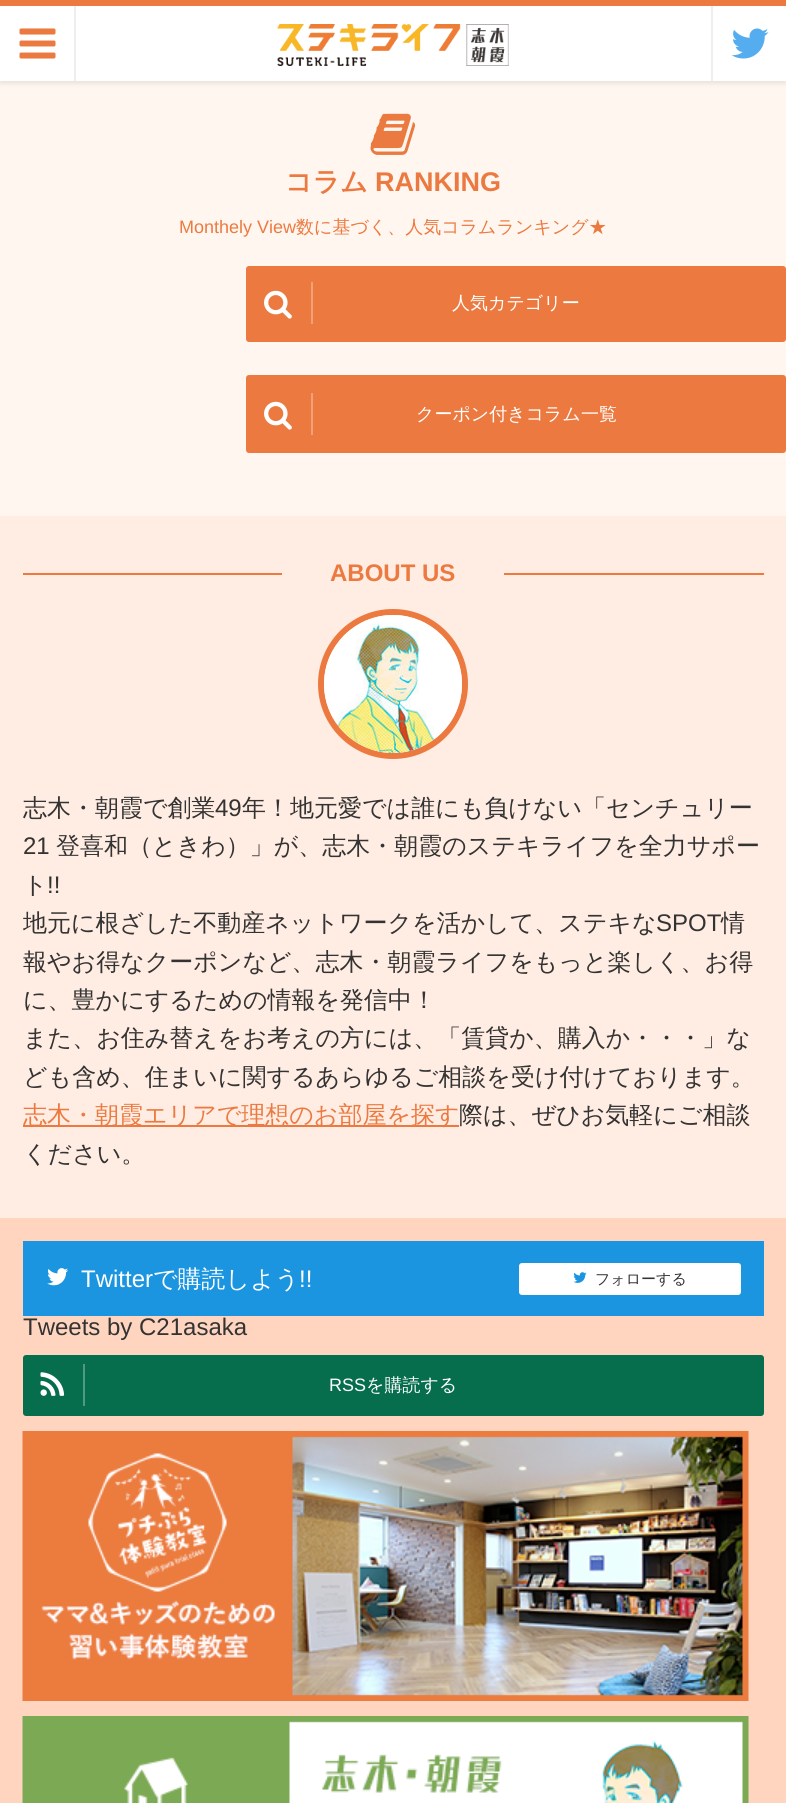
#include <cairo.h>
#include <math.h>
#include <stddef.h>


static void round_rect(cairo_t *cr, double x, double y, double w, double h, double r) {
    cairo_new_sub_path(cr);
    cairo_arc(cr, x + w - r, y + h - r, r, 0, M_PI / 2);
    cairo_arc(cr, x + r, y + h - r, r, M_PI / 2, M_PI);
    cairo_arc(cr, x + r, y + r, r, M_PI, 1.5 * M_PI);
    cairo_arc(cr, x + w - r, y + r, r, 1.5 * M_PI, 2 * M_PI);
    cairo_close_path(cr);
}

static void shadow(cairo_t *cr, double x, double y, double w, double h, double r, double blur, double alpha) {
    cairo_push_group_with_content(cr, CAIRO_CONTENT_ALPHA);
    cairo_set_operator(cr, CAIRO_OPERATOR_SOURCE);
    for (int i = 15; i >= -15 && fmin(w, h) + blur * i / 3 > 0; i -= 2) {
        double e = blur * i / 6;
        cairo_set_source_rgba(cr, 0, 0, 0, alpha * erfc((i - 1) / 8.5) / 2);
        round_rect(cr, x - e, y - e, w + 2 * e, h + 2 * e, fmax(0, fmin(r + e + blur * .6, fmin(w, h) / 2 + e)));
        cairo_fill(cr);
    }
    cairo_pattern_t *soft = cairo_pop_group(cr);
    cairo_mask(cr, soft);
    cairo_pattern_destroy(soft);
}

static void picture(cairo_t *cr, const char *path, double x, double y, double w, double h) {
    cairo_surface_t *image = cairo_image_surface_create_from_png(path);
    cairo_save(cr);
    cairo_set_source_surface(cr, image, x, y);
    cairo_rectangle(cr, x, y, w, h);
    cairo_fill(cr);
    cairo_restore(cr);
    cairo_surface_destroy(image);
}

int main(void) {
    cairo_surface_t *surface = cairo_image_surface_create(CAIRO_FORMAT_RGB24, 786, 1803);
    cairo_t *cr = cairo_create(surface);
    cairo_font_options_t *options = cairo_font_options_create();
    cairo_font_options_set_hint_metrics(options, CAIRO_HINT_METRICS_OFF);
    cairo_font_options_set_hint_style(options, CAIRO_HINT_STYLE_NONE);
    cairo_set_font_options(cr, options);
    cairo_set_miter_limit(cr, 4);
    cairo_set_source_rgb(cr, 1, 0.961, 0.941);
    cairo_paint(cr);
    cairo_set_source_rgb(cr, 0.196, 0.196, 0.196);
    shadow(cr, 0, 3, 786, 81, 0, 2, 0.1);
    cairo_set_source_rgb(cr, 1, 1, 1);
    cairo_rectangle(cr, 0, 6, 786, 75);
    cairo_fill(cr);
    cairo_set_source_rgb(cr, 0.922, 0.478, 0.251);
    cairo_rectangle(cr, 0, 0, 786, 6);
    cairo_fill(cr);
    cairo_set_source_rgb(cr, 0.933, 0.933, 0.933);
    cairo_rectangle(cr, 74, 6, 2, 75);
    cairo_fill(cr);
    picture(cr, "img1.png", 19, 28, 37, 31);
    picture(cr, "img2.png", 277, 24, 232, 42);
    cairo_rectangle(cr, 711, 6, 2, 75);
    cairo_fill(cr);
    picture(cr, "img3.png", 731, 28, 38, 31);
    picture(cr, "img4.png", 370, 113, 46, 42);
    cairo_select_font_face(cr, "WenQuanYi Zen Hei", CAIRO_FONT_SLANT_NORMAL, CAIRO_FONT_WEIGHT_BOLD);
    cairo_set_font_size(cr, 27);
    cairo_set_source_rgb(cr, 0.922, 0.478, 0.251);
    cairo_move_to(cr, 285, 191);
    cairo_show_text(cr, "コラム");
    cairo_select_font_face(cr, "Liberation Sans", CAIRO_FONT_SLANT_NORMAL, CAIRO_FONT_WEIGHT_BOLD);
    cairo_move_to(cr, 375, 191);
    cairo_show_text(cr, "RANKING");
    cairo_select_font_face(cr, "Liberation Sans", CAIRO_FONT_SLANT_NORMAL, CAIRO_FONT_WEIGHT_NORMAL);
    cairo_set_font_size(cr, 18);
    cairo_move_to(cr, 179, 233);
    cairo_show_text(cr, "Monthely View");
    cairo_select_font_face(cr, "WenQuanYi Zen Hei Medium", CAIRO_FONT_SLANT_NORMAL, CAIRO_FONT_WEIGHT_NORMAL);
    cairo_move_to(cr, 296, 233);
    cairo_show_text(cr, "数に基づく、人気コラムランキング★");
    round_rect(cr, 246, 266, 540, 76, 3);
    cairo_fill(cr);
    cairo_set_source_rgb(cr, 0.945, 0.635, 0.475);
    cairo_rectangle(cr, 311, 282, 2, 42);
    cairo_fill(cr);
    picture(cr, "img5.png", 264, 290, 28, 29);
    cairo_set_source_rgb(cr, 1, 1, 1);
    cairo_move_to(cr, 452, 309);
    cairo_show_text(cr, "人気カテゴリー");
    cairo_set_source_rgb(cr, 0.922, 0.478, 0.251);
    round_rect(cr, 246, 375, 540, 78, 3);
    cairo_fill(cr);
    cairo_set_source_rgb(cr, 0.945, 0.635, 0.475);
    cairo_rectangle(cr, 311, 393, 2, 42);
    cairo_fill(cr);
    picture(cr, "img5.png", 264, 401, 28, 29);
    cairo_set_source_rgb(cr, 1, 1, 1);
    cairo_move_to(cr, 416, 420);
    cairo_show_text(cr, "クーポン付きコラム一覧");
    cairo_set_source_rgb(cr, 1, 0.925, 0.886);
    cairo_rectangle(cr, 0, 516, 786, 702);
    cairo_fill(cr);
    cairo_set_source_rgb(cr, 0.922, 0.478, 0.251);
    cairo_rectangle(cr, 23, 573, 741, 2);
    cairo_fill(cr);
    cairo_set_source_rgb(cr, 1, 0.925, 0.886);
    cairo_rectangle(cr, 282, 573, 222, 2);
    cairo_fill(cr);
    cairo_select_font_face(cr, "Liberation Sans", CAIRO_FONT_SLANT_NORMAL, CAIRO_FONT_WEIGHT_BOLD);
    cairo_set_font_size(cr, 24);
    cairo_set_source_rgb(cr, 0.922, 0.478, 0.251);
    cairo_move_to(cr, 330, 581);
    cairo_show_text(cr, "ABOUT US");
    cairo_new_path(cr);
    cairo_arc(cr, 393, 684, 72, 0, 2 * M_PI);
    cairo_set_line_width(cr, 6);
    cairo_stroke(cr);
    picture(cr, "img6.png", 324, 615, 138, 138);
    cairo_select_font_face(cr, "WenQuanYi Zen Hei Medium", CAIRO_FONT_SLANT_NORMAL, CAIRO_FONT_WEIGHT_NORMAL);
    cairo_set_source_rgb(cr, 0.2, 0.2, 0.2);
    cairo_move_to(cr, 23, 816);
    cairo_show_text(cr, "志木・朝霞で創業");
    cairo_select_font_face(cr, "Liberation Sans", CAIRO_FONT_SLANT_NORMAL, CAIRO_FONT_WEIGHT_NORMAL);
    cairo_move_to(cr, 215, 816);
    cairo_show_text(cr, "49");
    cairo_select_font_face(cr, "WenQuanYi Zen Hei Medium", CAIRO_FONT_SLANT_NORMAL, CAIRO_FONT_WEIGHT_NORMAL);
    cairo_move_to(cr, 242, 816);
    cairo_show_text(cr, "年！地元愛では誰にも負けない「センチュリー");
    cairo_select_font_face(cr, "Liberation Sans", CAIRO_FONT_SLANT_NORMAL, CAIRO_FONT_WEIGHT_NORMAL);
    cairo_move_to(cr, 23, 854);
    cairo_show_text(cr, "21");
    cairo_select_font_face(cr, "WenQuanYi Zen Hei Medium", CAIRO_FONT_SLANT_NORMAL, CAIRO_FONT_WEIGHT_NORMAL);
    cairo_move_to(cr, 56, 854);
    cairo_show_text(cr, "登喜和（ときわ）」が、志木・朝霞のステキライフを全力サポー");
    cairo_move_to(cr, 23, 893);
    cairo_show_text(cr, "ト");
    cairo_select_font_face(cr, "Liberation Sans", CAIRO_FONT_SLANT_NORMAL, CAIRO_FONT_WEIGHT_NORMAL);
    cairo_move_to(cr, 47, 893);
    cairo_show_text(cr, "!!");
    cairo_select_font_face(cr, "WenQuanYi Zen Hei Medium", CAIRO_FONT_SLANT_NORMAL, CAIRO_FONT_WEIGHT_NORMAL);
    cairo_move_to(cr, 23, 931);
    cairo_show_text(cr, "地元に根ざした不動産ネットワークを活かして、ステキな");
    cairo_select_font_face(cr, "Liberation Sans", CAIRO_FONT_SLANT_NORMAL, CAIRO_FONT_WEIGHT_NORMAL);
    cairo_move_to(cr, 656, 931);
    cairo_show_text(cr, "SPOT");
    cairo_select_font_face(cr, "WenQuanYi Zen Hei Medium", CAIRO_FONT_SLANT_NORMAL, CAIRO_FONT_WEIGHT_NORMAL);
    cairo_move_to(cr, 721, 931);
    cairo_show_text(cr, "情");
    cairo_move_to(cr, 23, 970);
    cairo_show_text(cr, "報やお得なクーポンなど、志木・朝霞ライフをもっと楽しく、お得");
    cairo_move_to(cr, 23, 1008);
    cairo_show_text(cr, "に、豊かにするための情報を発信中！");
    cairo_move_to(cr, 23, 1046);
    cairo_show_text(cr, "また、お住み替えをお考えの方には、「賃貸か、購入か・・・」な");
    cairo_move_to(cr, 23, 1085);
    cairo_show_text(cr, "ども含め、住まいに関するあらゆるご相談を受け付けております。");
    cairo_set_source_rgb(cr, 0.922, 0.478, 0.251);
    cairo_rectangle(cr, 23, 1125, 436, 2);
    cairo_fill(cr);
    cairo_move_to(cr, 23, 1123);
    cairo_show_text(cr, "志木・朝霞エリアで理想のお部屋を探す");
    cairo_set_source_rgb(cr, 0.2, 0.2, 0.2);
    cairo_move_to(cr, 459, 1123);
    cairo_show_text(cr, "際は、ぜひお気軽にご相談");
    cairo_move_to(cr, 23, 1162);
    cairo_show_text(cr, "ください。");
    cairo_set_source_rgb(cr, 1, 0.835, 0.753);
    cairo_rectangle(cr, 0, 1218, 786, 585);
    cairo_fill(cr);
    cairo_set_source_rgb(cr, 0.106, 0.584, 0.878);
    cairo_rectangle(cr, 23, 1241, 741, 75);
    cairo_fill(cr);
    picture(cr, "img7.png", 47, 1268, 21, 18);
    cairo_select_font_face(cr, "Liberation Sans", CAIRO_FONT_SLANT_NORMAL, CAIRO_FONT_WEIGHT_NORMAL);
    cairo_set_source_rgb(cr, 1, 1, 1);
    cairo_move_to(cr, 81, 1287);
    cairo_show_text(cr, "Twitter");
    cairo_select_font_face(cr, "WenQuanYi Zen Hei Medium", CAIRO_FONT_SLANT_NORMAL, CAIRO_FONT_WEIGHT_NORMAL);
    cairo_move_to(cr, 153, 1287);
    cairo_show_text(cr, "で購読しよう");
    cairo_select_font_face(cr, "Liberation Sans", CAIRO_FONT_SLANT_NORMAL, CAIRO_FONT_WEIGHT_NORMAL);
    cairo_move_to(cr, 299, 1287);
    cairo_show_text(cr, "!!");
    round_rect(cr, 519, 1263, 222, 32, 3);
    cairo_fill(cr);
    picture(cr, "img8.png", 573, 1272, 14, 11);
    cairo_select_font_face(cr, "WenQuanYi Zen Hei Medium", CAIRO_FONT_SLANT_NORMAL, CAIRO_FONT_WEIGHT_NORMAL);
    cairo_set_font_size(cr, 15);
    cairo_set_source_rgb(cr, 0.2, 0.2, 0.2);
    cairo_move_to(cr, 595, 1284);
    cairo_show_text(cr, "フォローする");
    cairo_select_font_face(cr, "Liberation Sans", CAIRO_FONT_SLANT_NORMAL, CAIRO_FONT_WEIGHT_NORMAL);
    cairo_set_font_size(cr, 24);
    cairo_move_to(cr, 23, 1335);
    cairo_show_text(cr, "Tweets by C21asaka");
    cairo_set_source_rgb(cr, 0.024, 0.431, 0.298);
    round_rect(cr, 23, 1355, 741, 61, 3);
    cairo_fill(cr);
    cairo_set_source_rgb(cr, 0.318, 0.604, 0.51);
    cairo_rectangle(cr, 83, 1364, 2, 42);
    cairo_fill(cr);
    picture(cr, "img9.png", 40, 1372, 25, 24);
    cairo_set_font_size(cr, 18);
    cairo_set_source_rgb(cr, 1, 1, 1);
    cairo_move_to(cr, 329, 1391);
    cairo_show_text(cr, "RSS");
    cairo_select_font_face(cr, "WenQuanYi Zen Hei Medium", CAIRO_FONT_SLANT_NORMAL, CAIRO_FONT_WEIGHT_NORMAL);
    cairo_move_to(cr, 366, 1391);
    cairo_show_text(cr, "を購読する");
    picture(cr, "img10.png", 22, 1431, 727, 270);
    picture(cr, "img11.png", 22, 1716, 727, 87);
    cairo_surface_write_to_png(surface, "page.png");
    cairo_font_options_destroy(options);
    cairo_destroy(cr);
    cairo_surface_destroy(surface);
    return 0;
}
